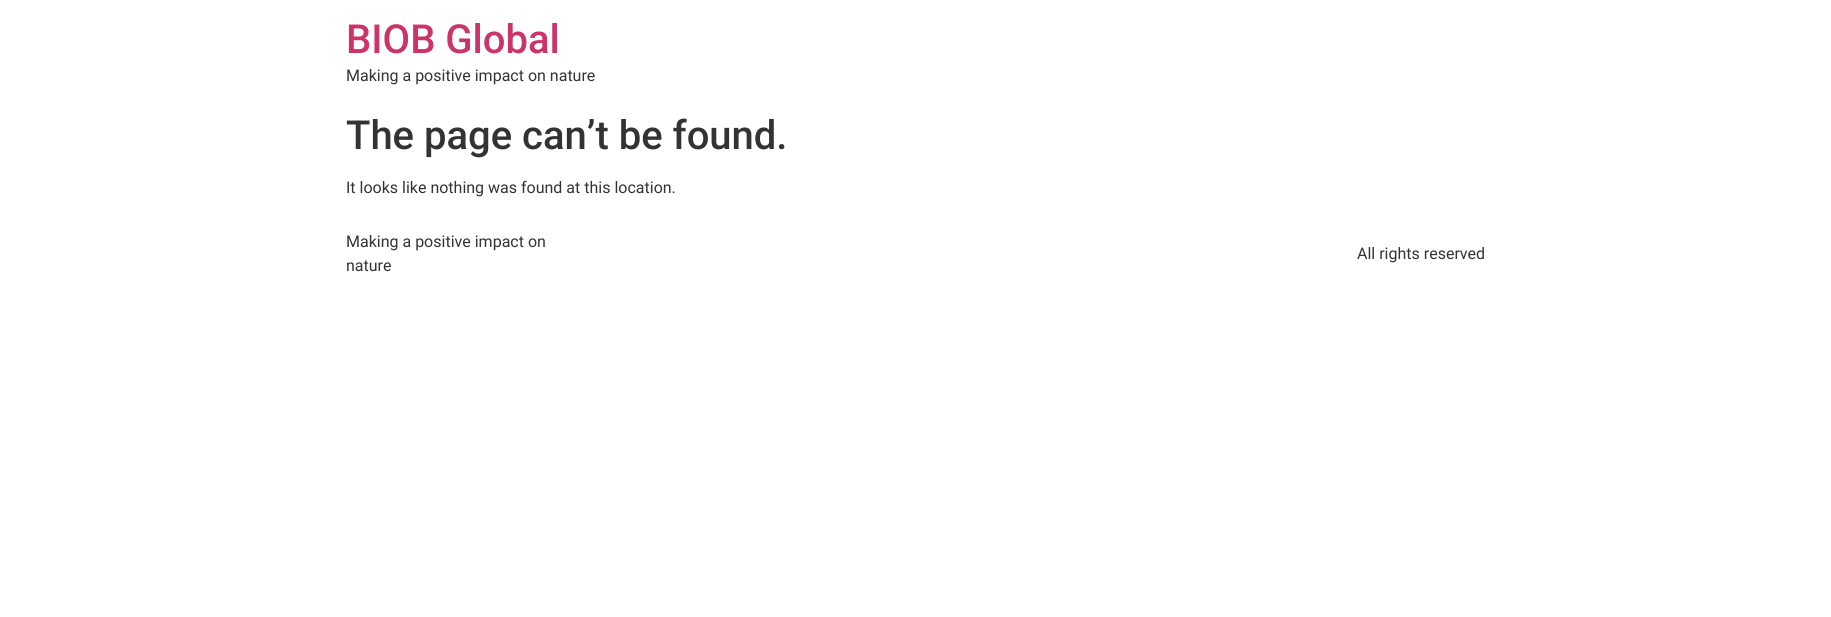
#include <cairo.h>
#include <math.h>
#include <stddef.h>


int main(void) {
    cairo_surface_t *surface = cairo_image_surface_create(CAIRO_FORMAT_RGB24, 1831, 617);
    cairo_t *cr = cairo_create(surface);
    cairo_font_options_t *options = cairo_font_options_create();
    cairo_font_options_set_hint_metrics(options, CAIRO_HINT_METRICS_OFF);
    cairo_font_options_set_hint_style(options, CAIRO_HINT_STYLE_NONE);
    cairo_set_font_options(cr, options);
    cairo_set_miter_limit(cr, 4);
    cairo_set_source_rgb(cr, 1, 1, 1);
    cairo_paint(cr);
    cairo_select_font_face(cr, "Roboto Medium", CAIRO_FONT_SLANT_NORMAL, CAIRO_FONT_WEIGHT_NORMAL);
    cairo_set_font_size(cr, 40);
    cairo_set_source_rgb(cr, 0.8, 0.2, 0.4);
    cairo_move_to(cr, 346, 53);
    cairo_show_text(cr, "BIOB Global");
    cairo_select_font_face(cr, "Roboto", CAIRO_FONT_SLANT_NORMAL, CAIRO_FONT_WEIGHT_NORMAL);
    cairo_set_font_size(cr, 16);
    cairo_set_source_rgb(cr, 0.2, 0.2, 0.2);
    cairo_move_to(cr, 346, 81);
    cairo_show_text(cr, "Making a positive impact on nature");
    cairo_select_font_face(cr, "Roboto Medium", CAIRO_FONT_SLANT_NORMAL, CAIRO_FONT_WEIGHT_NORMAL);
    cairo_set_font_size(cr, 40);
    cairo_move_to(cr, 346, 149);
    cairo_show_text(cr, "The page can’t be found.");
    cairo_select_font_face(cr, "Roboto", CAIRO_FONT_SLANT_NORMAL, CAIRO_FONT_WEIGHT_NORMAL);
    cairo_set_font_size(cr, 16);
    cairo_move_to(cr, 346, 193);
    cairo_show_text(cr, "It looks like nothing was found at this location.");
    cairo_move_to(cr, 346, 247);
    cairo_show_text(cr, "Making a positive impact on");
    cairo_move_to(cr, 346, 271);
    cairo_show_text(cr, "nature");
    cairo_move_to(cr, 1357, 259);
    cairo_show_text(cr, "All rights reserved");
    cairo_surface_write_to_png(surface, "page.png");
    cairo_font_options_destroy(options);
    cairo_destroy(cr);
    cairo_surface_destroy(surface);
    return 0;
}
